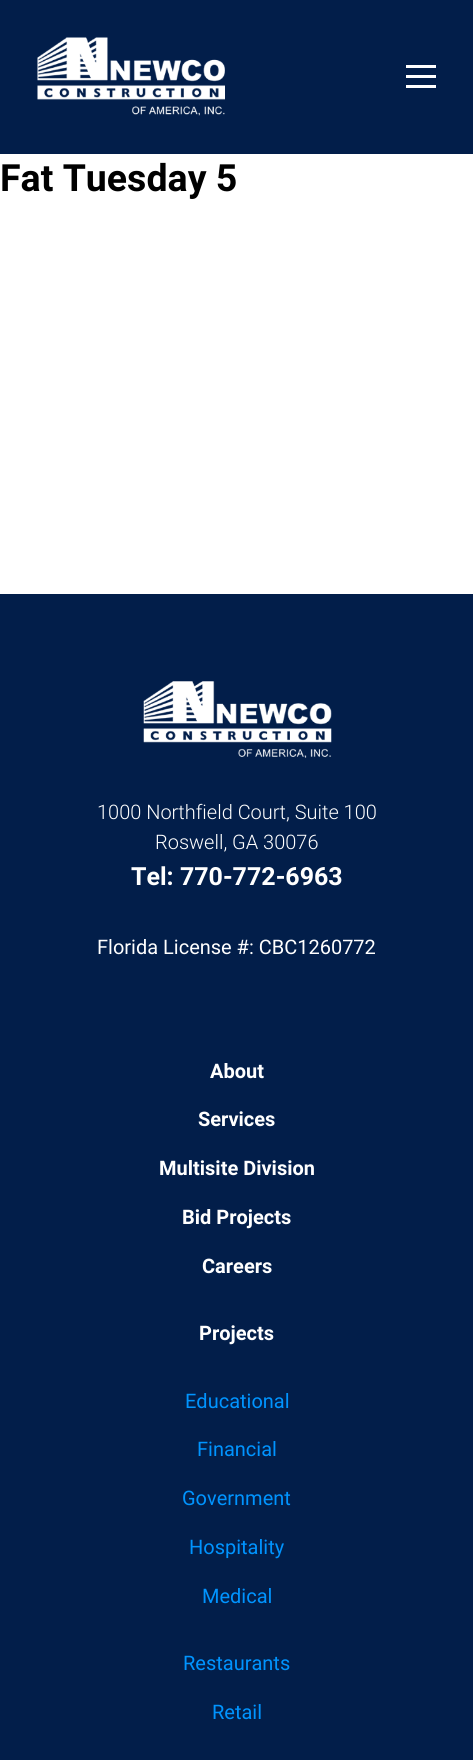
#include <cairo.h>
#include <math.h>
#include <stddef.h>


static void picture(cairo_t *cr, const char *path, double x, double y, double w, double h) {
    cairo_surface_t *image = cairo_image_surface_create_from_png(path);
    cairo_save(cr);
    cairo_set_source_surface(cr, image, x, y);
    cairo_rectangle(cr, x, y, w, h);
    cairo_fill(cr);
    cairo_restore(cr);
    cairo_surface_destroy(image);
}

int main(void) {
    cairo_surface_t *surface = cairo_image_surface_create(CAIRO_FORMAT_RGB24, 473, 1760);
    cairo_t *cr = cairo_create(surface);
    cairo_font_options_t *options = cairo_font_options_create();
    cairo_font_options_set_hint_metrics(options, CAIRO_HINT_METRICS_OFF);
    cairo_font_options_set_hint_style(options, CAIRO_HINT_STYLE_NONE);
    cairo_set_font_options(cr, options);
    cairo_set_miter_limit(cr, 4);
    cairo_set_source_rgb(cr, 1, 1, 1);
    cairo_paint(cr);
    cairo_set_source_rgb(cr, 0.008, 0.118, 0.29);
    cairo_rectangle(cr, 0, 0, 473, 154);
    cairo_fill(cr);
    picture(cr, "img1.png", 37, 37, 188, 79);
    cairo_set_source_rgb(cr, 1, 1, 1);
    cairo_rectangle(cr, 406, 65, 30, 3);
    cairo_fill(cr);
    cairo_rectangle(cr, 406, 75, 30, 3);
    cairo_fill(cr);
    cairo_rectangle(cr, 406, 85, 30, 3);
    cairo_fill(cr);
    cairo_select_font_face(cr, "Roboto", CAIRO_FONT_SLANT_NORMAL, CAIRO_FONT_WEIGHT_BOLD);
    cairo_set_font_size(cr, 37.5);
    cairo_set_source_rgb(cr, 0, 0, 0);
    cairo_move_to(cr, 0, 191);
    cairo_show_text(cr, "Fat Tuesday 5");
    cairo_set_source_rgb(cr, 0.008, 0.118, 0.29);
    cairo_rectangle(cr, 0, 594, 473, 1166);
    cairo_fill(cr);
    picture(cr, "img2.png", 143, 681, 189, 77);
    cairo_select_font_face(cr, "Roboto Light", CAIRO_FONT_SLANT_NORMAL, CAIRO_FONT_WEIGHT_NORMAL);
    cairo_set_font_size(cr, 20);
    cairo_set_source_rgb(cr, 1, 1, 1);
    cairo_move_to(cr, 97, 819);
    cairo_show_text(cr, "1000 Northfield Court, Suite 100");
    cairo_move_to(cr, 155, 849);
    cairo_show_text(cr, "Roswell, GA 30076");
    cairo_select_font_face(cr, "Roboto", CAIRO_FONT_SLANT_NORMAL, CAIRO_FONT_WEIGHT_BOLD);
    cairo_set_font_size(cr, 25);
    cairo_move_to(cr, 131, 885);
    cairo_show_text(cr, "Tel: 770-772-6963");
    cairo_select_font_face(cr, "Roboto", CAIRO_FONT_SLANT_NORMAL, CAIRO_FONT_WEIGHT_NORMAL);
    cairo_set_font_size(cr, 20);
    cairo_move_to(cr, 97, 954);
    cairo_show_text(cr, "Florida License #: CBC1260772");
    cairo_select_font_face(cr, "Roboto", CAIRO_FONT_SLANT_NORMAL, CAIRO_FONT_WEIGHT_BOLD);
    cairo_move_to(cr, 210, 1078);
    cairo_show_text(cr, "About");
    cairo_move_to(cr, 198, 1126);
    cairo_show_text(cr, "Services");
    cairo_move_to(cr, 159, 1175);
    cairo_show_text(cr, "Multisite Division");
    cairo_move_to(cr, 182, 1224);
    cairo_show_text(cr, "Bid Projects");
    cairo_move_to(cr, 202, 1273);
    cairo_show_text(cr, "Careers");
    cairo_move_to(cr, 199, 1340);
    cairo_show_text(cr, "Projects");
    cairo_select_font_face(cr, "Roboto", CAIRO_FONT_SLANT_NORMAL, CAIRO_FONT_WEIGHT_NORMAL);
    cairo_set_source_rgb(cr, 0, 0.58, 1);
    cairo_move_to(cr, 185, 1408);
    cairo_show_text(cr, "Educational");
    cairo_move_to(cr, 197, 1456);
    cairo_show_text(cr, "Financial");
    cairo_move_to(cr, 182, 1505);
    cairo_show_text(cr, "Government");
    cairo_move_to(cr, 189, 1554);
    cairo_show_text(cr, "Hospitality");
    cairo_move_to(cr, 202, 1603);
    cairo_show_text(cr, "Medical");
    cairo_move_to(cr, 183, 1670);
    cairo_show_text(cr, "Restaurants");
    cairo_move_to(cr, 212, 1719);
    cairo_show_text(cr, "Retail");
    cairo_surface_write_to_png(surface, "page.png");
    cairo_font_options_destroy(options);
    cairo_destroy(cr);
    cairo_surface_destroy(surface);
    return 0;
}
